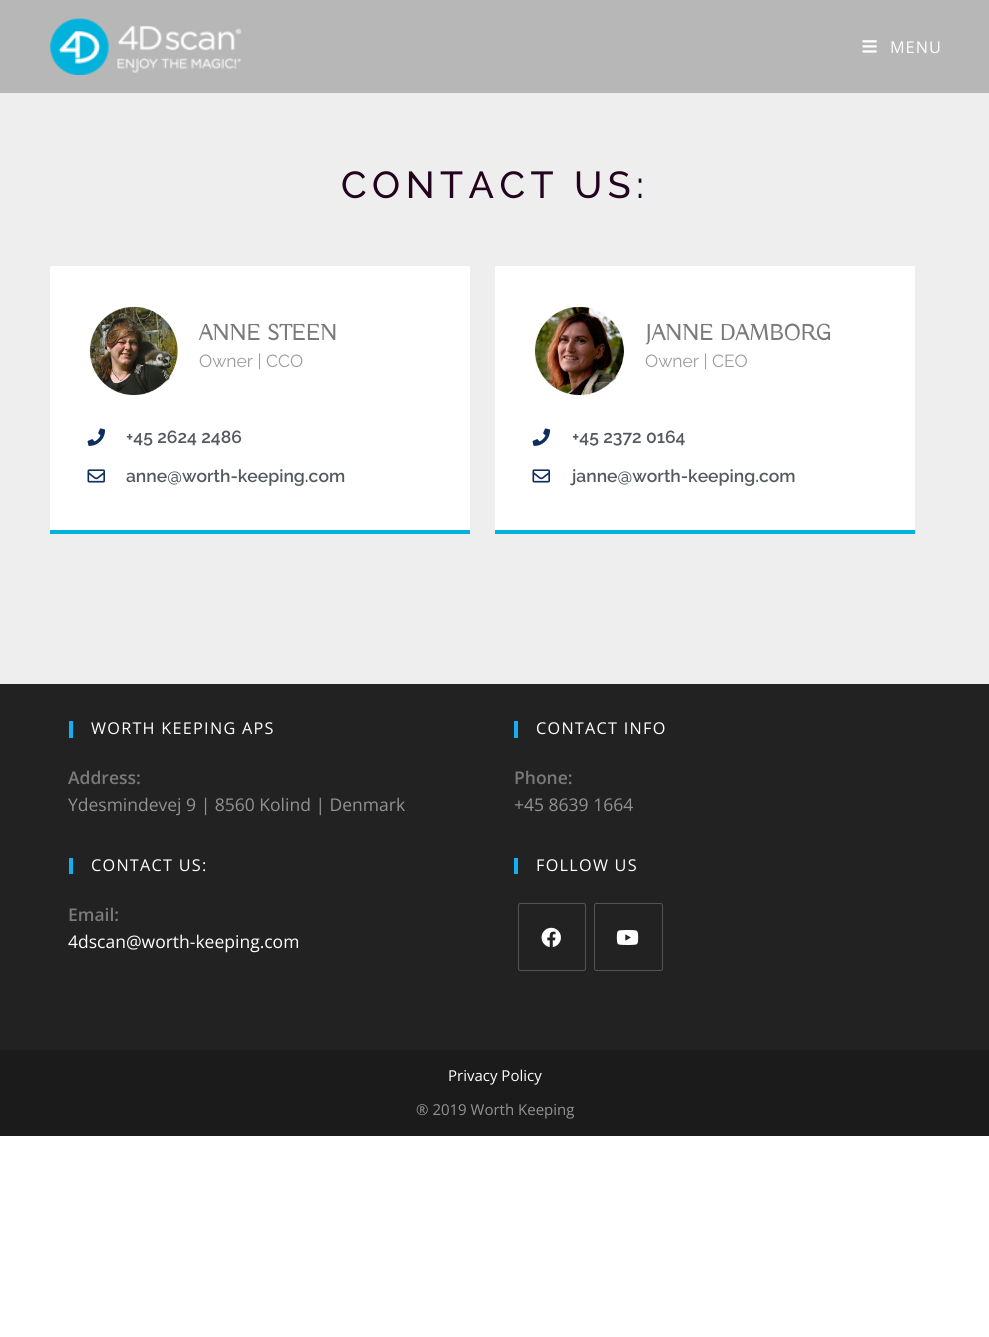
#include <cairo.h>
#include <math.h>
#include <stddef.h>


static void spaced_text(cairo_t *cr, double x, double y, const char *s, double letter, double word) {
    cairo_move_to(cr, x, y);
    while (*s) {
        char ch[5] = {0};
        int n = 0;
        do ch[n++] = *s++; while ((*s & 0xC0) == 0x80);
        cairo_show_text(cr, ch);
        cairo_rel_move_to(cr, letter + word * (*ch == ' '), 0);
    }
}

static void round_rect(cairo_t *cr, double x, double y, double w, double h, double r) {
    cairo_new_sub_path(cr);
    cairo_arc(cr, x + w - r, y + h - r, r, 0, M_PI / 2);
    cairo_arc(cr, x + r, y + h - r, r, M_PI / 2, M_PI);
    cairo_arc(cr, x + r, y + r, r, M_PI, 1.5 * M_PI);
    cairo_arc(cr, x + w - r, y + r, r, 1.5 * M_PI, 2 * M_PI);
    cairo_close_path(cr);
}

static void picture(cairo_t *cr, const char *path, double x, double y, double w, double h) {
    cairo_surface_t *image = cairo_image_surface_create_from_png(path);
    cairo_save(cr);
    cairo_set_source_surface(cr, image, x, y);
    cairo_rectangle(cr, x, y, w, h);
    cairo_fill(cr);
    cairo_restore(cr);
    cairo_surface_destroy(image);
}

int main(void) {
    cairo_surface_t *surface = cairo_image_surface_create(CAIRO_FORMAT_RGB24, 989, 1337);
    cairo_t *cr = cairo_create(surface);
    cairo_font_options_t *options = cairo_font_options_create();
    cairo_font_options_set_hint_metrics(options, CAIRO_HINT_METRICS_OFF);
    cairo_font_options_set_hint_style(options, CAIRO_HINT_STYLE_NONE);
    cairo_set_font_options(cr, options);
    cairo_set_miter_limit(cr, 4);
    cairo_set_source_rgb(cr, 1, 1, 1);
    cairo_paint(cr);
    cairo_set_source_rgb(cr, 0.718, 0.718, 0.718);
    cairo_rectangle(cr, 0, 0, 989, 93);
    cairo_fill(cr);
    picture(cr, "img1.png", 50, 18, 192, 57);
    picture(cr, "img2.png", 862, 40, 15, 13);
    cairo_select_font_face(cr, "Open Sans", CAIRO_FONT_SLANT_NORMAL, CAIRO_FONT_WEIGHT_NORMAL);
    cairo_set_font_size(cr, 16.25);
    cairo_set_source_rgb(cr, 1, 1, 1);
    spaced_text(cr, 890, 53, "MENU", 1, 0);
    cairo_set_source_rgb(cr, 0.933, 0.933, 0.933);
    cairo_rectangle(cr, 0, 93, 989, 591);
    cairo_fill(cr);
    cairo_select_font_face(cr, "Raleway Medium", CAIRO_FONT_SLANT_NORMAL, CAIRO_FONT_WEIGHT_NORMAL);
    cairo_set_font_size(cr, 37.5);
    cairo_set_source_rgb(cr, 0.141, 0.012, 0.118);
    spaced_text(cr, 341, 198, "CONTACT US:", 5.5, 0);
    cairo_set_source_rgb(cr, 1, 1, 1);
    cairo_rectangle(cr, 50, 266, 420, 264);
    cairo_fill(cr);
    cairo_set_source_rgb(cr, 0, 0.698, 0.863);
    cairo_rectangle(cr, 50, 530, 420, 4);
    cairo_fill(cr);
    picture(cr, "img3.png", 89, 306, 89, 90);
    cairo_select_font_face(cr, "Buda", CAIRO_FONT_SLANT_NORMAL, CAIRO_FONT_WEIGHT_BOLD);
    cairo_set_font_size(cr, 22.5);
    cairo_set_source_rgb(cr, 0.478, 0.478, 0.478);
    cairo_move_to(cr, 199, 340);
    cairo_show_text(cr, "ANNE STEEN");
    cairo_select_font_face(cr, "Raleway", CAIRO_FONT_SLANT_NORMAL, CAIRO_FONT_WEIGHT_NORMAL);
    cairo_set_font_size(cr, 17.5);
    cairo_set_source_rgb(cr, 0.608, 0.608, 0.608);
    cairo_move_to(cr, 199, 367);
    cairo_show_text(cr, "Owner | CCO");
    picture(cr, "img4.png", 87, 428, 18, 18);
    cairo_select_font_face(cr, "Raleway SemiBold", CAIRO_FONT_SLANT_NORMAL, CAIRO_FONT_WEIGHT_NORMAL);
    cairo_set_source_rgb(cr, 0.329, 0.349, 0.373);
    cairo_move_to(cr, 126, 443);
    cairo_show_text(cr, "+45 2624 2486");
    picture(cr, "img5.png", 87, 469, 18, 14);
    cairo_move_to(cr, 126, 482);
    cairo_show_text(cr, "anne@worth-keeping.com");
    cairo_set_source_rgb(cr, 1, 1, 1);
    cairo_rectangle(cr, 495, 266, 420, 264);
    cairo_fill(cr);
    cairo_set_source_rgb(cr, 0, 0.698, 0.863);
    cairo_rectangle(cr, 495, 530, 420, 4);
    cairo_fill(cr);
    picture(cr, "img6.png", 534, 306, 91, 90);
    cairo_select_font_face(cr, "Buda", CAIRO_FONT_SLANT_NORMAL, CAIRO_FONT_WEIGHT_BOLD);
    cairo_set_font_size(cr, 22.5);
    cairo_set_source_rgb(cr, 0.478, 0.478, 0.478);
    cairo_move_to(cr, 645, 340);
    cairo_show_text(cr, "JANNE DAMBORG");
    cairo_select_font_face(cr, "Raleway", CAIRO_FONT_SLANT_NORMAL, CAIRO_FONT_WEIGHT_NORMAL);
    cairo_set_font_size(cr, 17.5);
    cairo_set_source_rgb(cr, 0.608, 0.608, 0.608);
    cairo_move_to(cr, 645, 367);
    cairo_show_text(cr, "Owner | CEO");
    picture(cr, "img4.png", 532, 428, 18, 18);
    cairo_select_font_face(cr, "Raleway SemiBold", CAIRO_FONT_SLANT_NORMAL, CAIRO_FONT_WEIGHT_NORMAL);
    cairo_set_source_rgb(cr, 0.329, 0.349, 0.373);
    cairo_move_to(cr, 572, 443);
    cairo_show_text(cr, "+45 2372 0164");
    picture(cr, "img5.png", 532, 469, 18, 14);
    cairo_move_to(cr, 572, 482);
    cairo_show_text(cr, "janne@worth-keeping.com");
    cairo_set_source_rgb(cr, 0.133, 0.133, 0.133);
    cairo_rectangle(cr, 0, 684, 989, 366);
    cairo_fill(cr);
    cairo_set_source_rgb(cr, 0.075, 0.686, 0.941);
    cairo_rectangle(cr, 69, 721, 4, 17);
    cairo_fill(cr);
    cairo_select_font_face(cr, "Open Sans", CAIRO_FONT_SLANT_NORMAL, CAIRO_FONT_WEIGHT_NORMAL);
    cairo_set_font_size(cr, 16.25);
    cairo_set_source_rgb(cr, 1, 1, 1);
    spaced_text(cr, 91, 734, "WORTH KEEPING APS", 1.25, 0);
    cairo_select_font_face(cr, "Open Sans SemiBold", CAIRO_FONT_SLANT_NORMAL, CAIRO_FONT_WEIGHT_NORMAL);
    cairo_set_font_size(cr, 17.5);
    cairo_set_source_rgb(cr, 0.478, 0.478, 0.478);
    cairo_move_to(cr, 68, 784);
    cairo_show_text(cr, "Address:");
    cairo_select_font_face(cr, "Open Sans", CAIRO_FONT_SLANT_NORMAL, CAIRO_FONT_WEIGHT_NORMAL);
    cairo_set_source_rgb(cr, 0.573, 0.573, 0.573);
    cairo_move_to(cr, 68, 811);
    cairo_show_text(cr, "Ydesmindevej 9 | 8560 Kolind | Denmark");
    cairo_set_source_rgb(cr, 0.075, 0.686, 0.941);
    cairo_rectangle(cr, 514, 721, 4, 17);
    cairo_fill(cr);
    cairo_set_font_size(cr, 16.25);
    cairo_set_source_rgb(cr, 1, 1, 1);
    spaced_text(cr, 536, 734, "CONTACT INFO", 1.25, 0);
    cairo_select_font_face(cr, "Open Sans SemiBold", CAIRO_FONT_SLANT_NORMAL, CAIRO_FONT_WEIGHT_NORMAL);
    cairo_set_font_size(cr, 17.5);
    cairo_set_source_rgb(cr, 0.478, 0.478, 0.478);
    cairo_move_to(cr, 514, 784);
    cairo_show_text(cr, "Phone:");
    cairo_select_font_face(cr, "Open Sans", CAIRO_FONT_SLANT_NORMAL, CAIRO_FONT_WEIGHT_NORMAL);
    cairo_set_source_rgb(cr, 0.573, 0.573, 0.573);
    cairo_move_to(cr, 514, 811);
    cairo_show_text(cr, "+45 8639 1664");
    cairo_set_source_rgb(cr, 0.075, 0.686, 0.941);
    cairo_rectangle(cr, 69, 858, 4, 16);
    cairo_fill(cr);
    cairo_set_font_size(cr, 16.25);
    cairo_set_source_rgb(cr, 1, 1, 1);
    spaced_text(cr, 91, 871, "CONTACT US:", 1.25, 0);
    cairo_select_font_face(cr, "Open Sans SemiBold", CAIRO_FONT_SLANT_NORMAL, CAIRO_FONT_WEIGHT_NORMAL);
    cairo_set_font_size(cr, 17.5);
    cairo_set_source_rgb(cr, 0.478, 0.478, 0.478);
    cairo_move_to(cr, 68, 921);
    cairo_show_text(cr, "Email:");
    cairo_select_font_face(cr, "Open Sans", CAIRO_FONT_SLANT_NORMAL, CAIRO_FONT_WEIGHT_NORMAL);
    cairo_set_source_rgb(cr, 1, 1, 1);
    cairo_move_to(cr, 68, 948);
    cairo_show_text(cr, "4dscan@worth-keeping.com");
    cairo_set_source_rgb(cr, 0.075, 0.686, 0.941);
    cairo_rectangle(cr, 514, 858, 4, 16);
    cairo_fill(cr);
    cairo_set_font_size(cr, 16.25);
    cairo_set_source_rgb(cr, 1, 1, 1);
    spaced_text(cr, 536, 871, "FOLLOW US", 1.25, 0);
    round_rect(cr, 518.5, 903.5, 67, 67, 2);
    cairo_set_source_rgb(cr, 0.333, 0.333, 0.333);
    cairo_set_line_width(cr, 1);
    cairo_stroke(cr);
    picture(cr, "img7.png", 541, 927, 20, 20);
    round_rect(cr, 594.5, 903.5, 68, 67, 2);
    cairo_stroke(cr);
    picture(cr, "img8.png", 616, 930, 23, 15);
    cairo_set_source_rgb(cr, 0.106, 0.106, 0.106);
    cairo_rectangle(cr, 0, 1050, 989, 86);
    cairo_fill(cr);
    cairo_set_font_size(cr, 15);
    cairo_set_source_rgb(cr, 1, 1, 1);
    cairo_move_to(cr, 448, 1081);
    cairo_show_text(cr, "Privacy Policy");
    cairo_set_source_rgb(cr, 0.573, 0.573, 0.573);
    cairo_move_to(cr, 416, 1115);
    cairo_show_text(cr, "® 2019 Worth Keeping");
    cairo_surface_write_to_png(surface, "page.png");
    cairo_font_options_destroy(options);
    cairo_destroy(cr);
    cairo_surface_destroy(surface);
    return 0;
}
